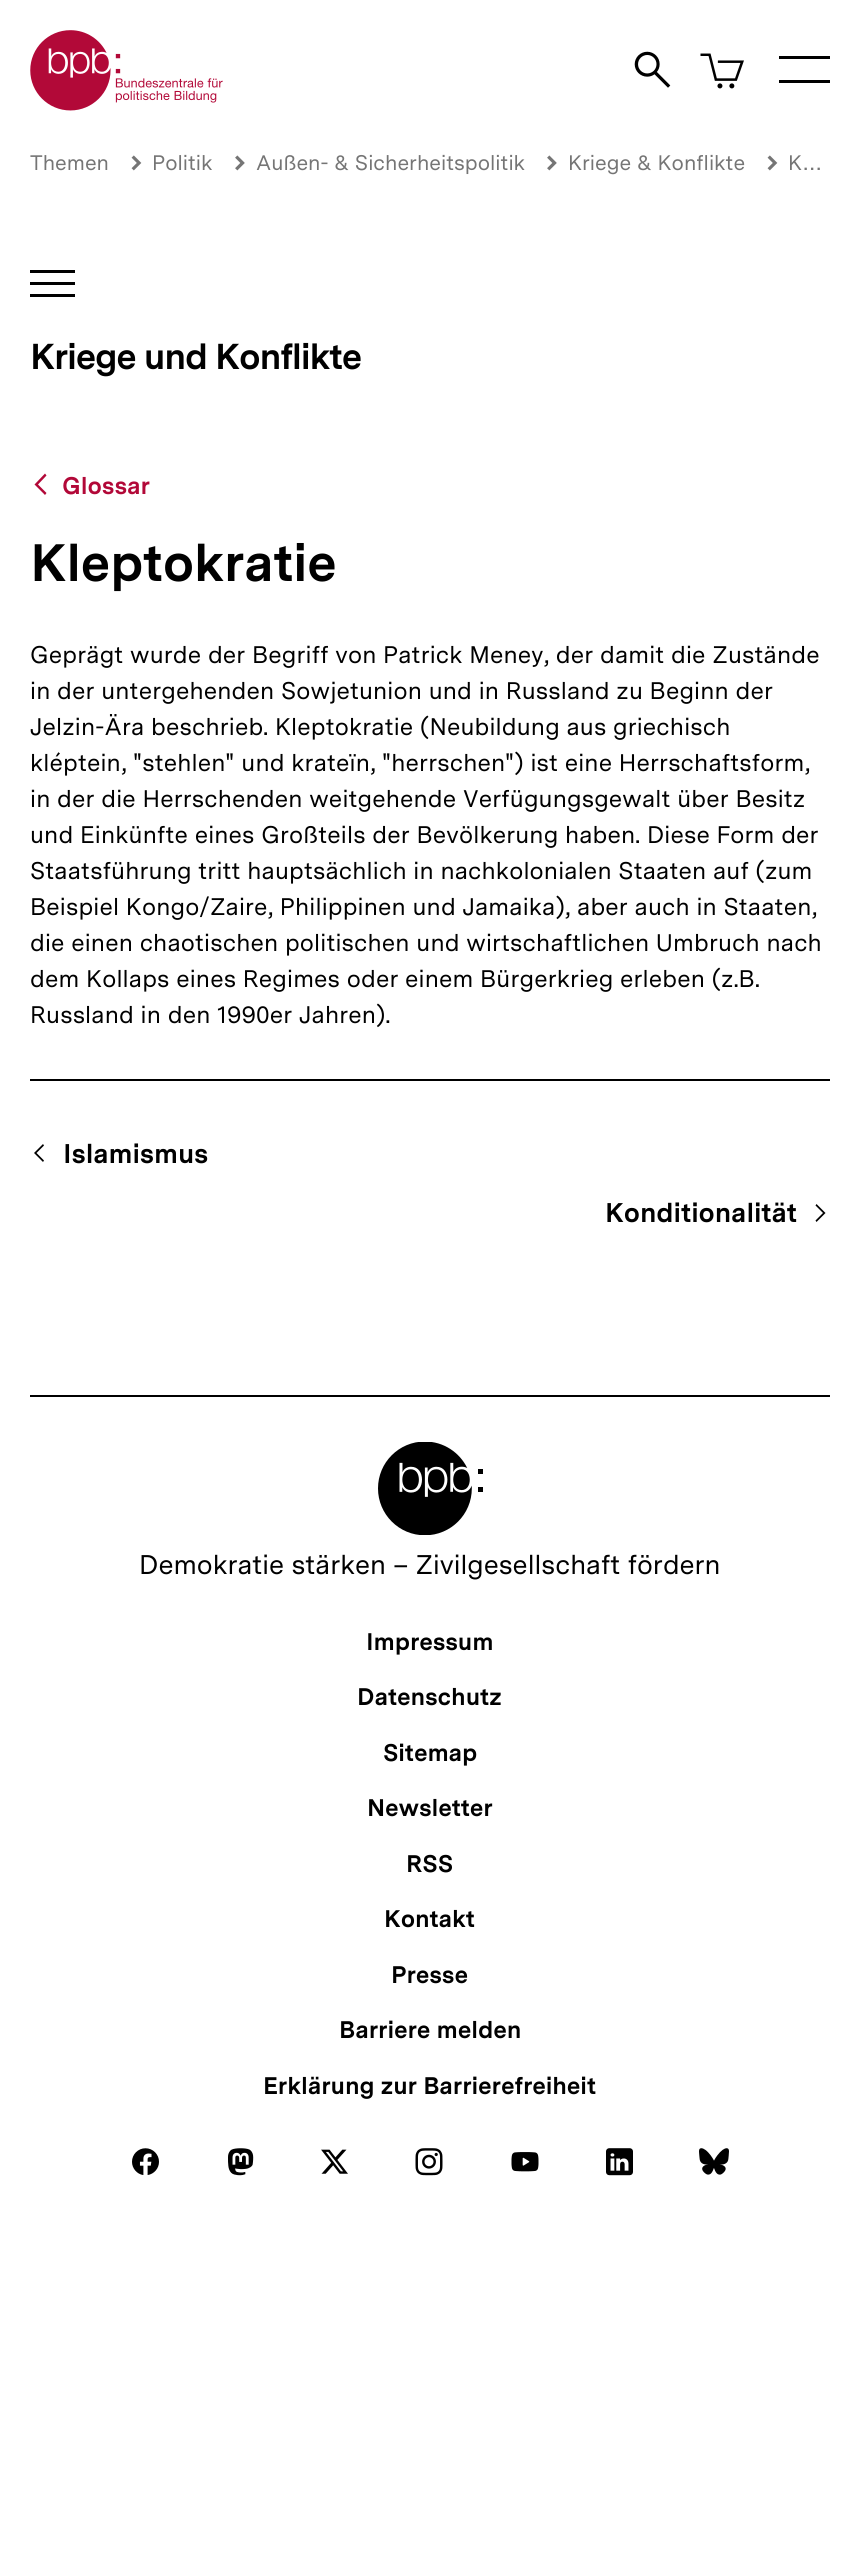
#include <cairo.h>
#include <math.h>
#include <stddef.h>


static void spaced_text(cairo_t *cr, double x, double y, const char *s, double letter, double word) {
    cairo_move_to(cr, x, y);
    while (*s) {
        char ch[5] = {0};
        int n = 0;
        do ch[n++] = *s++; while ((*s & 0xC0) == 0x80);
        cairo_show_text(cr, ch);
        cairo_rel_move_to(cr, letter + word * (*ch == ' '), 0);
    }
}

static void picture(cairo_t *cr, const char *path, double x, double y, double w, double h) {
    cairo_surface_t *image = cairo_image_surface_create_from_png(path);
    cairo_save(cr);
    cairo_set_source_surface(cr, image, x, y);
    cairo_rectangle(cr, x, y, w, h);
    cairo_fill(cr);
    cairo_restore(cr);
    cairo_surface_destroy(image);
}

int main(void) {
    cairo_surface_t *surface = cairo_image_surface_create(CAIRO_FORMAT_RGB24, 859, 2572);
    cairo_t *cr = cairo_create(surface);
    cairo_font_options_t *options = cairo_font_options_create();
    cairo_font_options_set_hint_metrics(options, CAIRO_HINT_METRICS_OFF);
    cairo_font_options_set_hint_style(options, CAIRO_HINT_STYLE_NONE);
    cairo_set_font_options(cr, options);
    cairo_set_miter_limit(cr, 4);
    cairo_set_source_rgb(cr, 1, 1, 1);
    cairo_paint(cr);
    picture(cr, "img1.png", 30, 30, 193, 81);
    picture(cr, "img2.png", 634, 51, 37, 37);
    picture(cr, "img3.png", 700, 53, 44, 36);
    cairo_set_source_rgb(cr, 0, 0, 0);
    cairo_rectangle(cr, 779, 56, 51, 3);
    cairo_fill(cr);
    cairo_rectangle(cr, 779, 80, 51, 3);
    cairo_fill(cr);
    cairo_select_font_face(cr, "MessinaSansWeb", CAIRO_FONT_SLANT_NORMAL, CAIRO_FONT_WEIGHT_NORMAL);
    cairo_set_font_size(cr, 21);
    cairo_set_source_rgb(cr, 0.459, 0.459, 0.459);
    cairo_move_to(cr, 30, 170);
    cairo_show_text(cr, "Themen");
    picture(cr, "img4.png", 131, 155, 11, 16);
    cairo_move_to(cr, 152, 170);
    cairo_show_text(cr, "Politik");
    picture(cr, "img5.png", 235, 155, 10, 16);
    cairo_move_to(cr, 256, 170);
    cairo_show_text(cr, "Außen- & Sicherheitspolitik");
    picture(cr, "img5.png", 547, 155, 10, 16);
    cairo_move_to(cr, 568, 170);
    cairo_show_text(cr, "Kriege & Konflikte");
    picture(cr, "img4.png", 767, 155, 11, 16);
    cairo_move_to(cr, 788, 170);
    cairo_show_text(cr, "K…");
    cairo_set_source_rgb(cr, 0, 0, 0);
    cairo_rectangle(cr, 30, 282, 45, 3);
    cairo_fill(cr);
    cairo_rectangle(cr, 30, 270, 45, 3);
    cairo_fill(cr);
    cairo_rectangle(cr, 30, 294, 45, 3);
    cairo_fill(cr);
    cairo_select_font_face(cr, "MessinaSansWeb", CAIRO_FONT_SLANT_NORMAL, CAIRO_FONT_WEIGHT_BOLD);
    cairo_set_font_size(cr, 36);
    spaced_text(cr, 30, 369, "Kriege und Konflikte", -1.25, 0);
    cairo_set_source_rgb(cr, 0.698, 0.035, 0.22);
    cairo_new_path(cr);
    cairo_move_to(cr, 46.5, 475.5);
    cairo_line_to(cr, 38, 484.5);
    cairo_line_to(cr, 46.5, 493);
    cairo_line_to(cr, 45, 495);
    cairo_line_to(cr, 34.5, 484.5);
    cairo_line_to(cr, 45, 473.5);
    cairo_close_path(cr);
    cairo_fill(cr);
    cairo_set_font_size(cr, 24);
    spaced_text(cr, 62, 494, "Glossar", -0.1, 0);
    cairo_set_font_size(cr, 52.5);
    cairo_set_source_rgb(cr, 0, 0, 0);
    spaced_text(cr, 30, 581, "Kleptokratie", -0.5, 0);
    cairo_select_font_face(cr, "MessinaSansWeb", CAIRO_FONT_SLANT_NORMAL, CAIRO_FONT_WEIGHT_NORMAL);
    cairo_set_font_size(cr, 24);
    spaced_text(cr, 30, 663, "Geprägt wurde der Begriff von Patrick Meney, der damit die Zustände", 0.15, 0);
    spaced_text(cr, 30, 699, "in der untergehenden Sowjetunion und in Russland zu Beginn der", 0.15, 0);
    spaced_text(cr, 30, 735, "Jelzin-Ära beschrieb. Kleptokratie (Neubildung aus griechisch", 0.15, 0);
    spaced_text(cr, 30, 771, "kléptein, \"stehlen\" und krateïn, \"herrschen\") ist eine Herrschaftsform,", 0.15, 0);
    spaced_text(cr, 30, 807, "in der die Herrschenden weitgehende Verfügungsgewalt über Besitz", 0.15, 0);
    spaced_text(cr, 30, 843, "und Einkünfte eines Großteils der Bevölkerung haben. Diese Form der", 0.15, 0);
    spaced_text(cr, 30, 879, "Staatsführung tritt hauptsächlich in nachkolonialen Staaten auf (zum", 0.15, 0);
    spaced_text(cr, 30, 915, "Beispiel Kongo/Zaire, Philippinen und Jamaika), aber auch in Staaten,", 0.15, 0);
    spaced_text(cr, 30, 951, "die einen chaotischen politischen und wirtschaftlichen Umbruch nach", 0.15, 0);
    spaced_text(cr, 30, 987, "dem Kollaps eines Regimes oder einem Bürgerkrieg erleben (z.B.", 0.15, 0);
    spaced_text(cr, 30, 1023, "Russland in den 1990er Jahren).", 0.15, 0);
    cairo_rectangle(cr, 30, 1079, 800, 2);
    cairo_fill(cr);
    cairo_new_path(cr);
    cairo_move_to(cr, 44, 1145.5);
    cairo_line_to(cr, 36.5, 1153);
    cairo_line_to(cr, 44, 1160.5);
    cairo_line_to(cr, 43, 1162);
    cairo_line_to(cr, 34, 1153);
    cairo_line_to(cr, 43, 1144);
    cairo_close_path(cr);
    cairo_fill(cr);
    cairo_select_font_face(cr, "MessinaSansWeb", CAIRO_FONT_SLANT_NORMAL, CAIRO_FONT_WEIGHT_BOLD);
    cairo_set_font_size(cr, 27);
    spaced_text(cr, 63, 1163, "Islamismus", -0.1, 0);
    spaced_text(cr, 605, 1222, "Konditionalität", -0.1, 0);
    cairo_new_path(cr);
    cairo_move_to(cr, 815.5, 1220.5);
    cairo_line_to(cr, 823, 1213);
    cairo_line_to(cr, 815.5, 1205.5);
    cairo_line_to(cr, 816.5, 1204);
    cairo_line_to(cr, 825.5, 1213);
    cairo_line_to(cr, 816.5, 1222);
    cairo_close_path(cr);
    cairo_fill(cr);
    cairo_rectangle(cr, 30, 1395, 800, 2);
    cairo_fill(cr);
    picture(cr, "img6.png", 378, 1442, 105, 93);
    cairo_select_font_face(cr, "MessinaSansWeb", CAIRO_FONT_SLANT_NORMAL, CAIRO_FONT_WEIGHT_NORMAL);
    cairo_move_to(cr, 139, 1574);
    cairo_show_text(cr, "Demokratie stärken – Zivilgesellschaft fördern");
    cairo_select_font_face(cr, "MessinaSansWeb", CAIRO_FONT_SLANT_NORMAL, CAIRO_FONT_WEIGHT_BOLD);
    cairo_set_font_size(cr, 24);
    spaced_text(cr, 366, 1650, "Impressum", -0.15, 0);
    spaced_text(cr, 357, 1705, "Datenschutz", -0.15, 0);
    spaced_text(cr, 383, 1761, "Sitemap", -0.15, 0);
    spaced_text(cr, 367, 1816, "Newsletter", -0.15, 0);
    spaced_text(cr, 406, 1872, "RSS", -0.15, 0);
    spaced_text(cr, 384, 1927, "Kontakt", -0.15, 0);
    spaced_text(cr, 391, 1983, "Presse", -0.15, 0);
    spaced_text(cr, 339, 2038, "Barriere melden", -0.15, 0);
    spaced_text(cr, 263, 2094, "Erklärung zur Barrierefreiheit", -0.15, 0);
    picture(cr, "img7.png", 132, 2148, 27, 27);
    picture(cr, "img8.png", 228, 2148, 26, 28);
    picture(cr, "img9.png", 321, 2149, 27, 25);
    picture(cr, "img10.png", 415, 2148, 28, 28);
    picture(cr, "img11.png", 511, 2152, 28, 20);
    picture(cr, "img12.png", 606, 2148, 27, 28);
    picture(cr, "img13.png", 699, 2148, 30, 27);
    cairo_surface_write_to_png(surface, "page.png");
    cairo_font_options_destroy(options);
    cairo_destroy(cr);
    cairo_surface_destroy(surface);
    return 0;
}
